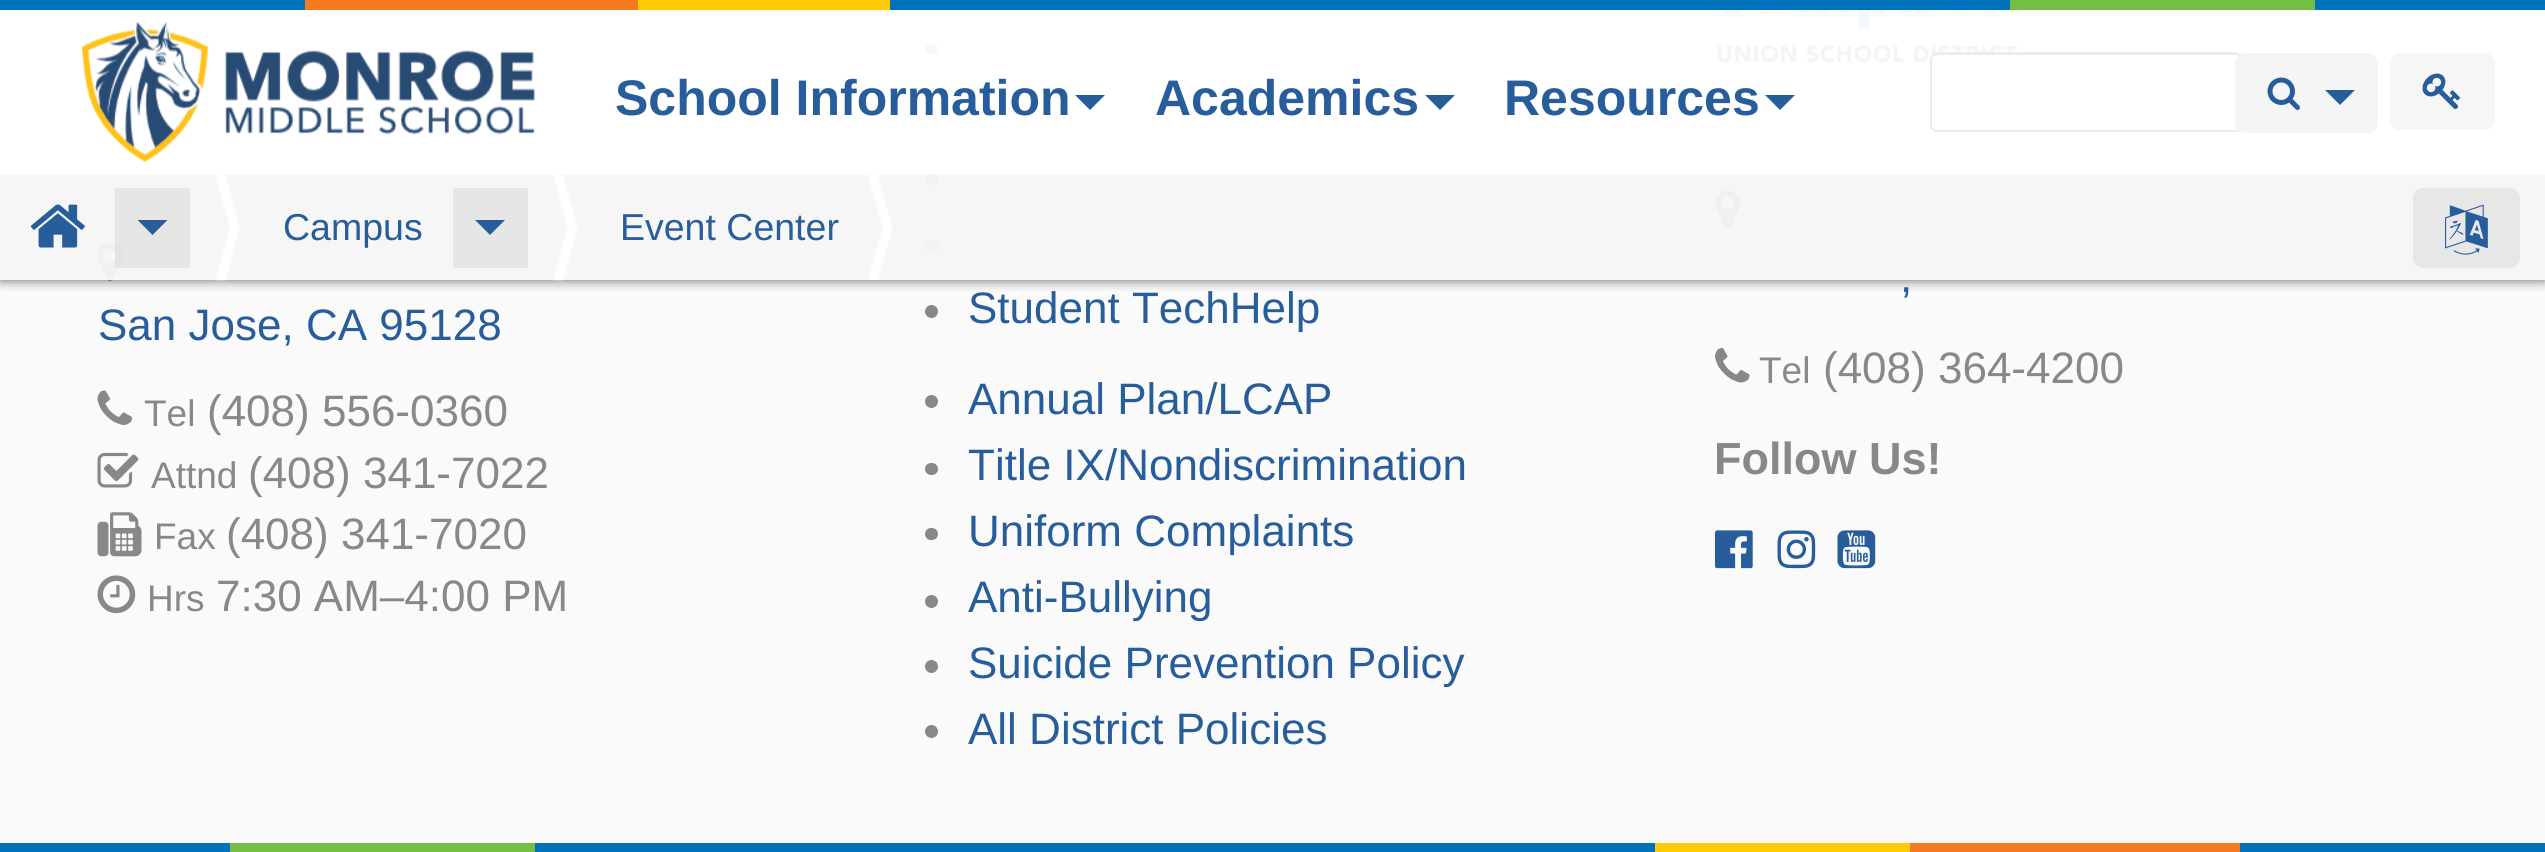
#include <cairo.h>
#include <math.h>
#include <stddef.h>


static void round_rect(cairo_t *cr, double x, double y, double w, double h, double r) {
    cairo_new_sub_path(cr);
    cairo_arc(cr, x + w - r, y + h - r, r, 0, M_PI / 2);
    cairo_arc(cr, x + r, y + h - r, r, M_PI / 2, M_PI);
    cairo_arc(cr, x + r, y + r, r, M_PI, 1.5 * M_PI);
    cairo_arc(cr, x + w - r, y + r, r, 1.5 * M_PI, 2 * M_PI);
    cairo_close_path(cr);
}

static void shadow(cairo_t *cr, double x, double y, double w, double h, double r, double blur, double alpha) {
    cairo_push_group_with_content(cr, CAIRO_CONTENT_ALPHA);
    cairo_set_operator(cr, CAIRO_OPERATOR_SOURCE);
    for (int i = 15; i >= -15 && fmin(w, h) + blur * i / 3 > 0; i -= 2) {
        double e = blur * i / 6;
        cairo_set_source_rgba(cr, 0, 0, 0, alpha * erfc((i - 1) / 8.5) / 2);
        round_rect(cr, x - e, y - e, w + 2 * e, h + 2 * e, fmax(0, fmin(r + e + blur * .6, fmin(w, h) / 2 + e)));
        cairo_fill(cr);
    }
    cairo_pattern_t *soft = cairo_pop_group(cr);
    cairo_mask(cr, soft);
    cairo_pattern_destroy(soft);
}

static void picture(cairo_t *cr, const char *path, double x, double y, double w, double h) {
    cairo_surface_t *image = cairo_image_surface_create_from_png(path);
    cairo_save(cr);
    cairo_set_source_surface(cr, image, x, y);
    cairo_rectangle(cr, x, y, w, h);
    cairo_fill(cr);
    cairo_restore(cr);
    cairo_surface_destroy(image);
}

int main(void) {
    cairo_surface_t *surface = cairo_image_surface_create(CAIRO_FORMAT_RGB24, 2545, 852);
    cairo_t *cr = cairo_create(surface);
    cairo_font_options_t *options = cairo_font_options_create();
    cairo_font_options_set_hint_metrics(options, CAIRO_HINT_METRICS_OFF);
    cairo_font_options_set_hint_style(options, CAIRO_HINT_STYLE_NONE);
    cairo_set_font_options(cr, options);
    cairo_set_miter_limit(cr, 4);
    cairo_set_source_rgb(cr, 0.98, 0.98, 0.98);
    cairo_paint(cr);
    picture(cr, "img9.png", 97, 242, 26, 39);
    cairo_set_source_rgb(cr, 0.533, 0.533, 0.533);
    round_rect(cr, 925, 43, 13, 12, 6);
    cairo_fill(cr);
    round_rect(cr, 925, 108, 13, 12, 6);
    cairo_fill(cr);
    round_rect(cr, 925, 173, 13, 12, 6);
    cairo_fill(cr);
    cairo_arc(cr, 931.5, 246.5, 6.5, 0, 2 * M_PI);
    cairo_fill(cr);
    picture(cr, "img14.png", 1717, 10, 303, 53);
    picture(cr, "img15.png", 1715, 190, 26, 39);
    cairo_save(cr);
    cairo_rectangle(cr, 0, 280, 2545, 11);
    cairo_clip(cr);
    cairo_set_source_rgb(cr, 0, 0, 0);
    shadow(cr, 0, 0, 2545, 280, 0, 6, 0.6);
    cairo_restore(cr);
    cairo_set_source_rgb(cr, 0, 0.443, 0.733);
    cairo_rectangle(cr, 0, 0, 2545, 10);
    cairo_fill(cr);
    cairo_set_source_rgb(cr, 0.957, 0.475, 0.129);
    cairo_rectangle(cr, 305, 0, 333, 10);
    cairo_fill(cr);
    cairo_set_source_rgb(cr, 1, 0.796, 0.02);
    cairo_rectangle(cr, 638, 0, 252, 10);
    cairo_fill(cr);
    cairo_set_source_rgb(cr, 0.447, 0.749, 0.267);
    cairo_rectangle(cr, 2010, 0, 305, 10);
    cairo_fill(cr);
    cairo_set_source_rgba(cr, 1, 1, 1, 0.95);
    cairo_rectangle(cr, 0, 10, 2545, 270);
    cairo_fill(cr);
    picture(cr, "img1.png", 81, 22, 455, 141);
    cairo_select_font_face(cr, "Liberation Sans", CAIRO_FONT_SLANT_NORMAL, CAIRO_FONT_WEIGHT_BOLD);
    cairo_set_font_size(cr, 50);
    cairo_set_source_rgb(cr, 0.153, 0.365, 0.608);
    cairo_move_to(cr, 615, 115);
    cairo_show_text(cr, "School Information");
    cairo_new_path(cr);
    cairo_move_to(cr, 1075, 95);
    cairo_line_to(cr, 1105, 95);
    cairo_line_to(cr, 1090, 110);
    cairo_close_path(cr);
    cairo_fill(cr);
    cairo_move_to(cr, 1155, 115);
    cairo_show_text(cr, "Academics");
    cairo_new_path(cr);
    cairo_move_to(cr, 1425, 95);
    cairo_line_to(cr, 1455, 95);
    cairo_line_to(cr, 1440, 110);
    cairo_close_path(cr);
    cairo_fill(cr);
    cairo_move_to(cr, 1504, 115);
    cairo_show_text(cr, "Resources");
    cairo_new_path(cr);
    cairo_move_to(cr, 1765, 95);
    cairo_line_to(cr, 1795, 95);
    cairo_line_to(cr, 1780, 110);
    cairo_close_path(cr);
    cairo_fill(cr);
    cairo_set_source_rgb(cr, 1, 1, 1);
    round_rect(cr, 1930, 53, 313, 80, 8);
    cairo_fill(cr);
    cairo_set_source_rgb(cr, 0.922, 0.922, 0.922);
    cairo_set_fill_rule(cr, CAIRO_FILL_RULE_EVEN_ODD);
    cairo_new_path(cr);
    cairo_move_to(cr, 1938, 52);
    cairo_line_to(cr, 2235, 52);
    cairo_curve_to(cr, 2239, 52, 2242, 56, 2242, 60);
    cairo_line_to(cr, 2242, 125);
    cairo_curve_to(cr, 2242, 129, 2239, 132, 2235, 132);
    cairo_line_to(cr, 1938, 132);
    cairo_curve_to(cr, 1933, 132, 1930, 129, 1930, 125);
    cairo_line_to(cr, 1930, 60);
    cairo_curve_to(cr, 1930, 56, 1933, 52, 1938, 52);
    cairo_close_path(cr);
    cairo_move_to(cr, 1938, 55);
    cairo_line_to(cr, 2235, 55);
    cairo_curve_to(cr, 2239, 55, 2242, 57, 2242, 60);
    cairo_line_to(cr, 2242, 125);
    cairo_curve_to(cr, 2242, 128, 2239, 130, 2235, 130);
    cairo_line_to(cr, 1938, 130);
    cairo_curve_to(cr, 1935, 130, 1932, 128, 1932, 125);
    cairo_line_to(cr, 1932, 60);
    cairo_curve_to(cr, 1932, 57, 1935, 55, 1938, 55);
    cairo_close_path(cr);
    cairo_fill(cr);
    cairo_set_source_rgba(cr, 0.902, 0.902, 0.902, 0.4);
    cairo_new_path(cr);
    cairo_move_to(cr, 2245, 53);
    cairo_line_to(cr, 2303, 53);
    cairo_line_to(cr, 2303, 133);
    cairo_line_to(cr, 2245, 133);
    cairo_curve_to(cr, 2239.5, 133, 2235, 128.5, 2235, 123);
    cairo_line_to(cr, 2235, 63);
    cairo_curve_to(cr, 2235, 57.5, 2239.5, 53, 2245, 53);
    cairo_close_path(cr);
    cairo_fill(cr);
    picture(cr, "img2.png", 2267, 77, 33, 33);
    cairo_new_path(cr);
    cairo_move_to(cr, 2303, 53);
    cairo_line_to(cr, 2368, 53);
    cairo_curve_to(cr, 2373.5, 53, 2378, 57.5, 2378, 63);
    cairo_line_to(cr, 2378, 123);
    cairo_curve_to(cr, 2378, 128.5, 2373.5, 133, 2368, 133);
    cairo_line_to(cr, 2303, 133);
    cairo_close_path(cr);
    cairo_fill(cr);
    cairo_set_source_rgb(cr, 0.153, 0.365, 0.608);
    cairo_set_fill_rule(cr, CAIRO_FILL_RULE_WINDING);
    cairo_new_path(cr);
    cairo_move_to(cr, 2325, 90);
    cairo_line_to(cr, 2355, 90);
    cairo_line_to(cr, 2340, 105);
    cairo_close_path(cr);
    cairo_fill(cr);
    cairo_set_source_rgb(cr, 0.961, 0.961, 0.961);
    round_rect(cr, 2390, 53, 105, 77, 10);
    cairo_fill(cr);
    picture(cr, "img3.png", 2422, 73, 38, 37);
    cairo_set_source_rgba(cr, 0.863, 0.863, 0.863, 0.25);
    cairo_rectangle(cr, 0, 175, 2545, 105);
    cairo_fill(cr);
    picture(cr, "img4.png", 30, 204, 55, 44);
    cairo_set_source_rgba(cr, 0.843, 0.843, 0.843, 0.5);
    cairo_rectangle(cr, 115, 188, 75, 80);
    cairo_fill(cr);
    cairo_set_source_rgb(cr, 0.153, 0.365, 0.608);
    cairo_new_path(cr);
    cairo_move_to(cr, 137.5, 220);
    cairo_line_to(cr, 167.5, 220);
    cairo_line_to(cr, 152.5, 235);
    cairo_close_path(cr);
    cairo_fill(cr);
    picture(cr, "img5.png", 215, 175, 25, 106);
    cairo_select_font_face(cr, "Liberation Sans", CAIRO_FONT_SLANT_NORMAL, CAIRO_FONT_WEIGHT_NORMAL);
    cairo_set_font_size(cr, 37.5);
    cairo_move_to(cr, 283, 240);
    cairo_show_text(cr, "Campus");
    cairo_set_source_rgba(cr, 0.843, 0.843, 0.843, 0.5);
    cairo_rectangle(cr, 453, 188, 75, 80);
    cairo_fill(cr);
    cairo_set_source_rgb(cr, 0.153, 0.365, 0.608);
    cairo_new_path(cr);
    cairo_move_to(cr, 475, 220);
    cairo_line_to(cr, 505, 220);
    cairo_line_to(cr, 490, 235);
    cairo_close_path(cr);
    cairo_fill(cr);
    picture(cr, "img6.png", 553, 175, 24, 106);
    cairo_move_to(cr, 620, 240);
    cairo_show_text(cr, "Event Center");
    picture(cr, "img7.png", 868, 175, 25, 105);
    cairo_set_source_rgb(cr, 0.906, 0.906, 0.906);
    round_rect(cr, 2413, 188, 107, 80, 10);
    cairo_fill(cr);
    picture(cr, "img8.png", 2445, 204, 43, 51);
    cairo_set_font_size(cr, 44);
    cairo_set_source_rgb(cr, 0.153, 0.365, 0.608);
    cairo_move_to(cr, 98, 340);
    cairo_show_text(cr, "San Jose, CA 95128");
    picture(cr, "img10.png", 97, 390, 35, 35);
    cairo_set_font_size(cr, 37);
    cairo_set_source_rgb(cr, 0.533, 0.533, 0.533);
    cairo_move_to(cr, 144, 426);
    cairo_show_text(cr, "Tel");
    cairo_set_font_size(cr, 44);
    cairo_move_to(cr, 207, 426);
    cairo_show_text(cr, "(408) 556-0360");
    picture(cr, "img11.png", 97, 452, 42, 36);
    cairo_set_font_size(cr, 37);
    cairo_move_to(cr, 151, 488);
    cairo_show_text(cr, "Attnd");
    cairo_set_font_size(cr, 44);
    cairo_move_to(cr, 248, 488);
    cairo_show_text(cr, "(408) 341-7022");
    picture(cr, "img12.png", 97, 512, 45, 45);
    cairo_set_font_size(cr, 37);
    cairo_move_to(cr, 154, 549);
    cairo_show_text(cr, "Fax");
    cairo_set_font_size(cr, 44);
    cairo_move_to(cr, 226, 549);
    cairo_show_text(cr, "(408) 341-7020");
    picture(cr, "img13.png", 97, 575, 39, 39);
    cairo_set_font_size(cr, 37);
    cairo_move_to(cr, 147, 611);
    cairo_show_text(cr, "Hrs");
    cairo_set_font_size(cr, 44);
    cairo_move_to(cr, 216, 611);
    cairo_show_text(cr, "7:30 AM–4:00 PM");
    cairo_new_path(cr);
    cairo_arc(cr, 931.5, 311.5, 6.5, 0, 2 * M_PI);
    cairo_fill(cr);
    cairo_set_source_rgb(cr, 0.153, 0.365, 0.608);
    cairo_move_to(cr, 968, 323);
    cairo_show_text(cr, "Student TechHelp");
    cairo_set_source_rgb(cr, 0.533, 0.533, 0.533);
    cairo_new_path(cr);
    cairo_arc(cr, 931.5, 401.5, 6.5, 0, 2 * M_PI);
    cairo_fill(cr);
    cairo_set_source_rgb(cr, 0.153, 0.365, 0.608);
    cairo_move_to(cr, 968, 414);
    cairo_show_text(cr, "Annual Plan/LCAP");
    cairo_set_source_rgb(cr, 0.533, 0.533, 0.533);
    round_rect(cr, 925, 463, 13, 12, 6);
    cairo_fill(cr);
    cairo_set_source_rgb(cr, 0.153, 0.365, 0.608);
    cairo_move_to(cr, 968, 480);
    cairo_show_text(cr, "Title IX/Nondiscrimination");
    cairo_set_source_rgb(cr, 0.533, 0.533, 0.533);
    round_rect(cr, 925, 528, 13, 12, 6);
    cairo_fill(cr);
    cairo_set_source_rgb(cr, 0.153, 0.365, 0.608);
    cairo_move_to(cr, 968, 546);
    cairo_show_text(cr, "Uniform Complaints");
    cairo_set_source_rgb(cr, 0.533, 0.533, 0.533);
    cairo_new_path(cr);
    cairo_arc(cr, 931.5, 601.5, 6.5, 0, 2 * M_PI);
    cairo_fill(cr);
    cairo_set_source_rgb(cr, 0.153, 0.365, 0.608);
    cairo_move_to(cr, 968, 612);
    cairo_show_text(cr, "Anti-Bullying");
    cairo_set_source_rgb(cr, 0.533, 0.533, 0.533);
    cairo_new_path(cr);
    cairo_arc(cr, 931.5, 666.5, 6.5, 0, 2 * M_PI);
    cairo_fill(cr);
    cairo_set_source_rgb(cr, 0.153, 0.365, 0.608);
    cairo_move_to(cr, 968, 678);
    cairo_show_text(cr, "Suicide Prevention Policy");
    cairo_set_source_rgb(cr, 0.533, 0.533, 0.533);
    cairo_new_path(cr);
    cairo_arc(cr, 931.5, 731.5, 6.5, 0, 2 * M_PI);
    cairo_fill(cr);
    cairo_set_source_rgb(cr, 0.153, 0.365, 0.608);
    cairo_move_to(cr, 968, 744);
    cairo_show_text(cr, "All District Policies");
    cairo_move_to(cr, 1900, 292);
    cairo_show_text(cr, ",");
    picture(cr, "img16.png", 1715, 347, 35, 36);
    cairo_set_font_size(cr, 37);
    cairo_set_source_rgb(cr, 0.533, 0.533, 0.533);
    cairo_move_to(cr, 1759, 383);
    cairo_show_text(cr, "Tel");
    cairo_set_font_size(cr, 44);
    cairo_move_to(cr, 1823, 383);
    cairo_show_text(cr, "(408) 364-4200");
    cairo_select_font_face(cr, "Liberation Sans", CAIRO_FONT_SLANT_NORMAL, CAIRO_FONT_WEIGHT_BOLD);
    cairo_set_font_size(cr, 45);
    cairo_move_to(cr, 1714, 474);
    cairo_show_text(cr, "Follow Us!");
    picture(cr, "img17.png", 1715, 530, 38, 39);
    picture(cr, "img18.png", 1777, 530, 39, 39);
    picture(cr, "img19.png", 1837, 530, 39, 39);
    cairo_set_source_rgb(cr, 0, 0.443, 0.733);
    cairo_rectangle(cr, 0, 843, 2545, 9);
    cairo_fill(cr);
    cairo_set_source_rgb(cr, 0.957, 0.475, 0.129);
    cairo_rectangle(cr, 1910, 843, 330, 9);
    cairo_fill(cr);
    cairo_set_source_rgb(cr, 1, 0.796, 0.02);
    cairo_rectangle(cr, 1655, 843, 255, 9);
    cairo_fill(cr);
    cairo_set_source_rgb(cr, 0.447, 0.749, 0.267);
    cairo_rectangle(cr, 230, 843, 305, 9);
    cairo_fill(cr);
    cairo_surface_write_to_png(surface, "page.png");
    cairo_font_options_destroy(options);
    cairo_destroy(cr);
    cairo_surface_destroy(surface);
    return 0;
}
